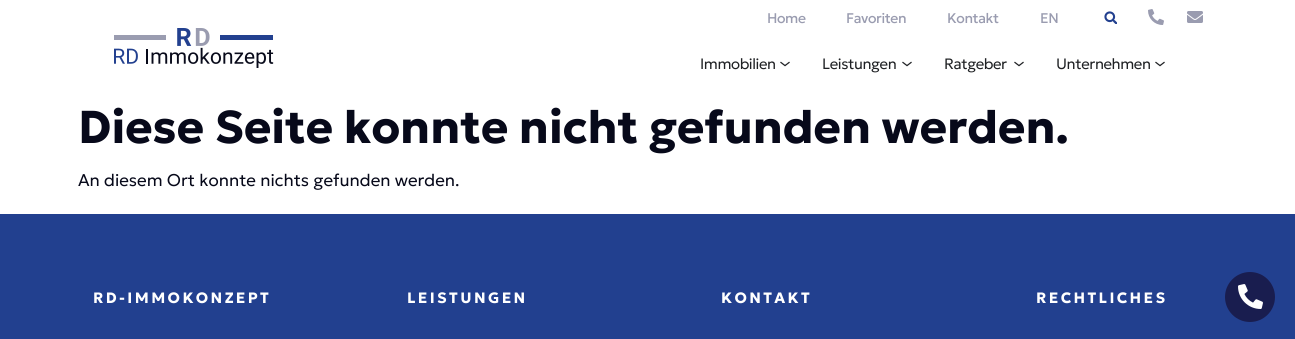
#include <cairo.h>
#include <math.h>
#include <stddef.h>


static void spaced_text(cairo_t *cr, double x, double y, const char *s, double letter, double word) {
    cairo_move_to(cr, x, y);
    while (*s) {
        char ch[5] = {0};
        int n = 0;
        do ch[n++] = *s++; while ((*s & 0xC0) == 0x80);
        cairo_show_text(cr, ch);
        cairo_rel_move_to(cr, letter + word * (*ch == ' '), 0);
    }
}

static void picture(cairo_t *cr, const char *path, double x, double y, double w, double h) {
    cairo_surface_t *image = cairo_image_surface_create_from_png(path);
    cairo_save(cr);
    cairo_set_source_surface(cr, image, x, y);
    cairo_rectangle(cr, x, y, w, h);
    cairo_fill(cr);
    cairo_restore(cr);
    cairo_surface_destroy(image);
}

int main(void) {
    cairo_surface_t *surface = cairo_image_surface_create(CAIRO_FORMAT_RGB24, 1295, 339);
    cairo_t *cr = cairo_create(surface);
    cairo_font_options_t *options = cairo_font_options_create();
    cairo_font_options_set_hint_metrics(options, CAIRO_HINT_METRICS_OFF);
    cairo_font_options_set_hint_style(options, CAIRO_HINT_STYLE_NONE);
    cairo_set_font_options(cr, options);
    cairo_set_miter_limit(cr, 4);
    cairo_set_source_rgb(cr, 1, 1, 1);
    cairo_paint(cr);
    cairo_select_font_face(cr, "Geologica", CAIRO_FONT_SLANT_NORMAL, CAIRO_FONT_WEIGHT_NORMAL);
    cairo_set_font_size(cr, 14);
    cairo_set_source_rgb(cr, 0.604, 0.612, 0.69);
    spaced_text(cr, 767, 23, "Home", -0.4, 0);
    spaced_text(cr, 846, 23, "Favoriten", -0.4, 0);
    spaced_text(cr, 947, 23, "Kontakt", -0.4, 0);
    spaced_text(cr, 1040, 23, "EN", -0.4, 0);
    picture(cr, "img1.png", 1104, 11, 13, 13);
    picture(cr, "img2.png", 1148, 9, 16, 16);
    picture(cr, "img3.png", 1187, 11, 16, 12);
    picture(cr, "img4.png", 114, 28, 160, 40);
    cairo_select_font_face(cr, "Geologica Light", CAIRO_FONT_SLANT_NORMAL, CAIRO_FONT_WEIGHT_NORMAL);
    cairo_set_font_size(cr, 15);
    cairo_set_source_rgb(cr, 0.122, 0.129, 0.141);
    spaced_text(cr, 700, 69, "Immobilien", -0.4, 0);
    picture(cr, "img5.png", 780, 61, 10, 6);
    spaced_text(cr, 822, 69, "Leistungen", -0.4, 0);
    picture(cr, "img5.png", 902, 61, 10, 6);
    spaced_text(cr, 944, 69, "Ratgeber", -0.4, 0);
    picture(cr, "img5.png", 1014, 61, 10, 6);
    spaced_text(cr, 1056, 69, "Unternehmen", -0.4, 0);
    picture(cr, "img5.png", 1155, 61, 10, 6);
    cairo_select_font_face(cr, "Geologica", CAIRO_FONT_SLANT_NORMAL, CAIRO_FONT_WEIGHT_BOLD);
    cairo_set_font_size(cr, 46);
    cairo_set_source_rgb(cr, 0.031, 0.039, 0.102);
    cairo_move_to(cr, 78, 143);
    cairo_show_text(cr, "Diese Seite konnte nicht gefunden werden.");
    cairo_select_font_face(cr, "Geologica Light", CAIRO_FONT_SLANT_NORMAL, CAIRO_FONT_WEIGHT_NORMAL);
    cairo_set_font_size(cr, 17);
    cairo_move_to(cr, 78, 186);
    cairo_show_text(cr, "An diesem Ort konnte nichts gefunden werden.");
    cairo_set_source_rgb(cr, 0.133, 0.251, 0.561);
    cairo_rectangle(cr, 0, 214, 1295, 125);
    cairo_fill(cr);
    cairo_select_font_face(cr, "Geologica", CAIRO_FONT_SLANT_NORMAL, CAIRO_FONT_WEIGHT_BOLD);
    cairo_set_font_size(cr, 15);
    cairo_set_source_rgb(cr, 1, 1, 1);
    spaced_text(cr, 93, 303, "RD-IMMOKONZEPT", 2.4, 0);
    spaced_text(cr, 407, 303, "LEISTUNGEN", 2.4, 0);
    spaced_text(cr, 721, 303, "KONTAKT", 2.4, 0);
    spaced_text(cr, 1036, 303, "RECHTLICHES", 2.4, 0);
    cairo_set_source_rgb(cr, 0.098, 0.114, 0.31);
    cairo_new_path(cr);
    cairo_arc(cr, 1250, 297, 25, 0, 2 * M_PI);
    cairo_fill(cr);
    picture(cr, "img6.png", 1238, 284, 25, 25);
    cairo_surface_write_to_png(surface, "page.png");
    cairo_font_options_destroy(options);
    cairo_destroy(cr);
    cairo_surface_destroy(surface);
    return 0;
}
